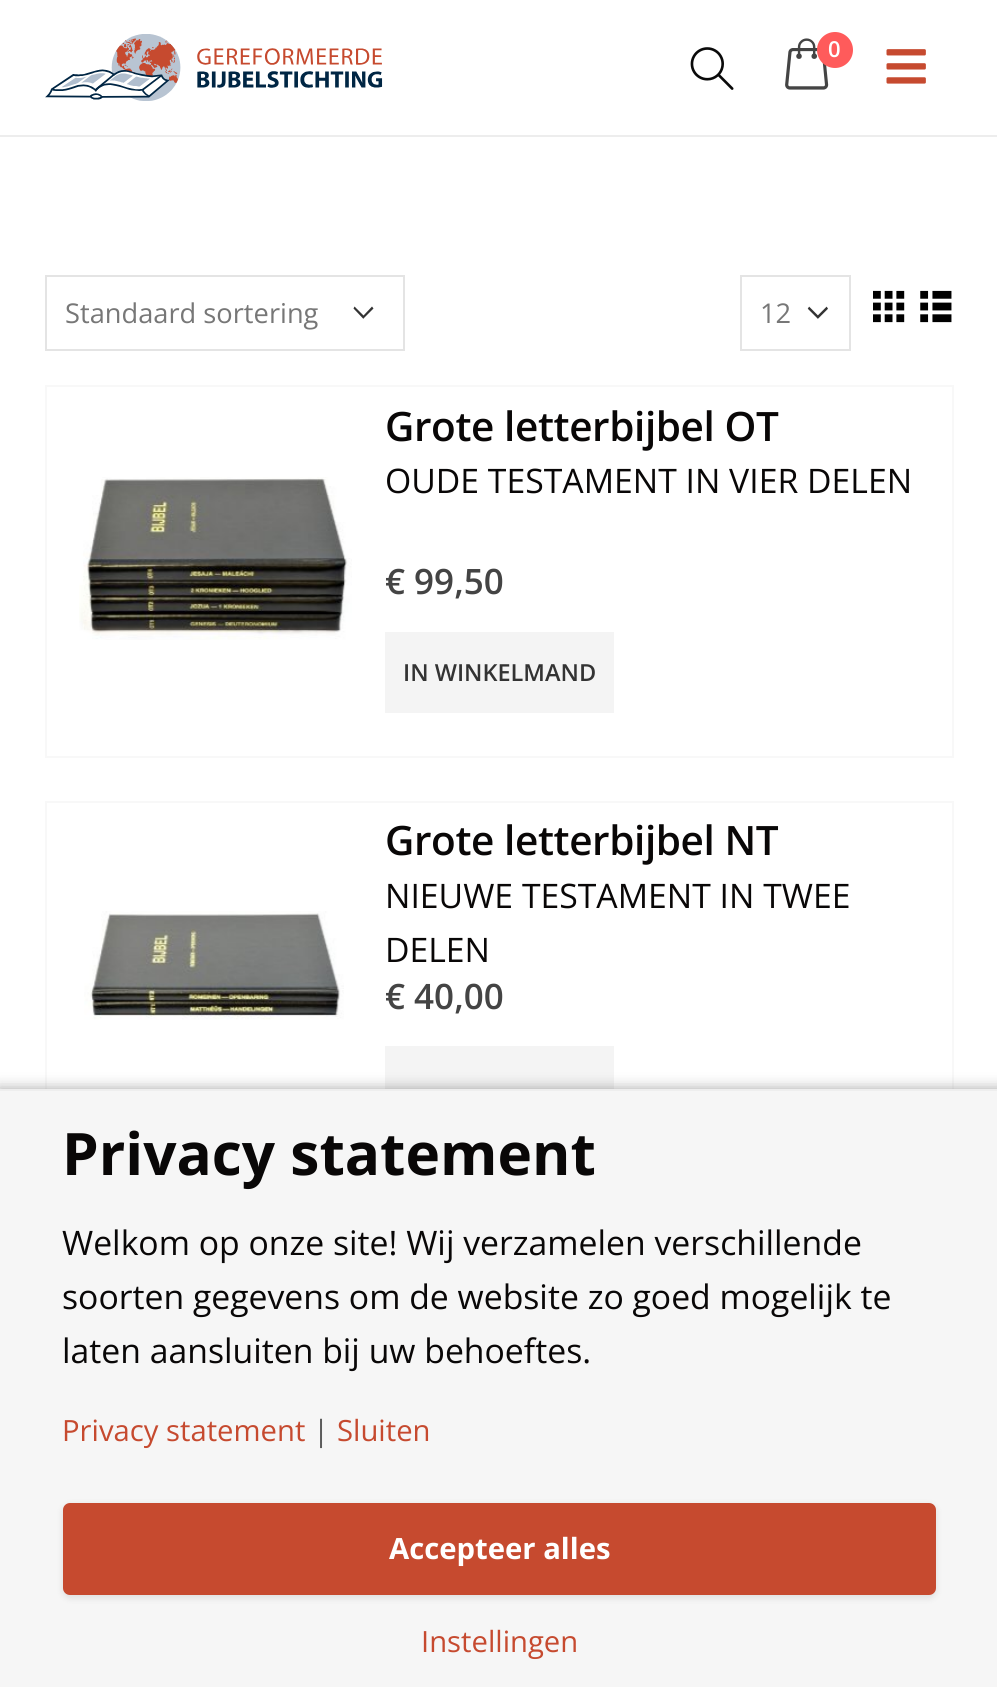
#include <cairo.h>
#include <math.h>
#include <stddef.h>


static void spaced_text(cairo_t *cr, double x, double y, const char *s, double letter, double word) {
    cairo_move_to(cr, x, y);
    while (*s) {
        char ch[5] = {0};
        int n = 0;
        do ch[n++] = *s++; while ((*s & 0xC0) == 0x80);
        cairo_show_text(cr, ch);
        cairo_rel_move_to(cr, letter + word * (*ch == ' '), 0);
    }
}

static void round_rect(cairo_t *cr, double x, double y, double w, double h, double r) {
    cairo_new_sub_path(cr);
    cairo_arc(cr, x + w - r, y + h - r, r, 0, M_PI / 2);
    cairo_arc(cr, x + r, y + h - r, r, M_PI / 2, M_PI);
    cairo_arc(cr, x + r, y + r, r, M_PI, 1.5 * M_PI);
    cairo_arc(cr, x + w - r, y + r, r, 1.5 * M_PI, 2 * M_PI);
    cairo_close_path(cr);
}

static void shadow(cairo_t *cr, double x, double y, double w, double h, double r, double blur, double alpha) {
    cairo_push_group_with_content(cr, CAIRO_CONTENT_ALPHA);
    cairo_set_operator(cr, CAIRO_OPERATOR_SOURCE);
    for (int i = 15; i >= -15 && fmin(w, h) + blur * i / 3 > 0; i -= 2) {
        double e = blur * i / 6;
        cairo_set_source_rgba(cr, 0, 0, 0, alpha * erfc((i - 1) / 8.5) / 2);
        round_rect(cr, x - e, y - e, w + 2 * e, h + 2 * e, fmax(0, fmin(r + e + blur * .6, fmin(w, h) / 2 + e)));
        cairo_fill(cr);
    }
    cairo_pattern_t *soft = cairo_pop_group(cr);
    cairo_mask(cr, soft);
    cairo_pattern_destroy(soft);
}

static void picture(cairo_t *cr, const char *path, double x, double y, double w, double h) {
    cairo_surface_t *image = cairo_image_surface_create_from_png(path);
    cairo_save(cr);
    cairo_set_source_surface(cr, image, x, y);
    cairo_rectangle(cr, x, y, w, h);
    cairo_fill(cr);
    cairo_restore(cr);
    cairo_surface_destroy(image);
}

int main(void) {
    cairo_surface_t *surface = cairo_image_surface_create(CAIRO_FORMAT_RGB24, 997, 1687);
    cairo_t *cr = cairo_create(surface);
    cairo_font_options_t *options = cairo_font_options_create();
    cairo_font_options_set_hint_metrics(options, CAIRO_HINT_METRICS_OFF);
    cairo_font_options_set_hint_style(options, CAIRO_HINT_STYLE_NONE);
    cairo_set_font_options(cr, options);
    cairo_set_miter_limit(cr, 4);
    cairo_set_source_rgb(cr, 1, 1, 1);
    cairo_paint(cr);
    cairo_set_source_rgb(cr, 0.929, 0.929, 0.929);
    cairo_rectangle(cr, 0, 135, 997, 2);
    cairo_fill(cr);
    picture(cr, "img1.png", 45, 34, 338, 67);
    picture(cr, "img2.png", 690, 47, 44, 43);
    picture(cr, "img3.png", 785, 38, 44, 52);
    cairo_set_source_rgb(cr, 1, 0.357, 0.357);
    cairo_arc(cr, 835, 50, 18, 0, 2 * M_PI);
    cairo_fill(cr);
    cairo_select_font_face(cr, "Open Sans SemiBold", CAIRO_FONT_SLANT_NORMAL, CAIRO_FONT_WEIGHT_NORMAL);
    cairo_set_font_size(cr, 22);
    cairo_set_source_rgb(cr, 1, 1, 1);
    cairo_move_to(cr, 828, 57);
    cairo_show_text(cr, "0");
    picture(cr, "img4.png", 886, 49, 40, 35);
    cairo_set_source_rgb(cr, 0.2, 0.2, 0.2);
    cairo_set_fill_rule(cr, CAIRO_FILL_RULE_EVEN_ODD);
    cairo_new_path(cr);
    cairo_move_to(cr, 363.5, 318.5);
    cairo_line_to(cr, 373.5, 308.5);
    cairo_line_to(cr, 372, 306.5);
    cairo_line_to(cr, 363.5, 315.5);
    cairo_line_to(cr, 354.5, 306.5);
    cairo_line_to(cr, 353.5, 308.5);
    cairo_line_to(cr, 363.5, 319);
    cairo_close_path(cr);
    cairo_fill(cr);
    cairo_rectangle(cr, 46, 276, 358, 74);
    cairo_set_source_rgb(cr, 0.894, 0.894, 0.894);
    cairo_stroke(cr);
    cairo_select_font_face(cr, "Open Sans", CAIRO_FONT_SLANT_NORMAL, CAIRO_FONT_WEIGHT_NORMAL);
    cairo_set_font_size(cr, 27.25);
    cairo_set_source_rgb(cr, 0.467, 0.467, 0.467);
    cairo_move_to(cr, 65, 323);
    cairo_show_text(cr, "Standaard sortering");
    picture(cr, "img5.png", 807, 306, 21, 13);
    cairo_rectangle(cr, 741, 276, 109, 74);
    cairo_set_source_rgb(cr, 0.894, 0.894, 0.894);
    cairo_stroke(cr);
    cairo_set_source_rgb(cr, 0.467, 0.467, 0.467);
    cairo_move_to(cr, 760, 323);
    cairo_show_text(cr, "12");
    picture(cr, "img6.png", 873, 290, 32, 33);
    picture(cr, "img7.png", 920, 290, 32, 33);
    cairo_rectangle(cr, 46, 386, 907, 371);
    cairo_set_source_rgb(cr, 0.969, 0.969, 0.969);
    cairo_stroke(cr);
    picture(cr, "img8.png", 79, 477, 273, 163);
    cairo_select_font_face(cr, "Open Sans SemiBold", CAIRO_FONT_SLANT_NORMAL, CAIRO_FONT_WEIGHT_NORMAL);
    cairo_set_font_size(cr, 40.5);
    cairo_set_source_rgb(cr, 0.039, 0.031, 0.031);
    spaced_text(cr, 385, 441, "Grote letterbijbel OT", -0.4, 0);
    cairo_select_font_face(cr, "Open Sans", CAIRO_FONT_SLANT_NORMAL, CAIRO_FONT_WEIGHT_NORMAL);
    cairo_set_font_size(cr, 33.75);
    cairo_move_to(cr, 385, 493);
    cairo_show_text(cr, "OUDE TESTAMENT IN VIER DELEN");
    cairo_select_font_face(cr, "Open Sans SemiBold", CAIRO_FONT_SLANT_NORMAL, CAIRO_FONT_WEIGHT_NORMAL);
    cairo_set_font_size(cr, 35);
    cairo_set_source_rgb(cr, 0.267, 0.267, 0.267);
    cairo_move_to(cr, 385, 594);
    cairo_show_text(cr, "€ 99,50");
    cairo_set_source_rgb(cr, 0.957, 0.957, 0.957);
    cairo_rectangle(cr, 385, 632, 229, 81);
    cairo_fill(cr);
    cairo_set_font_size(cr, 23.5);
    cairo_set_source_rgb(cr, 0.2, 0.2, 0.2);
    cairo_move_to(cr, 403, 681);
    cairo_show_text(cr, "IN WINKELMAND");
    cairo_rectangle(cr, 46, 802, 907, 369);
    cairo_set_source_rgb(cr, 0.969, 0.969, 0.969);
    cairo_stroke(cr);
    picture(cr, "img9.png", 84, 911, 260, 109);
    cairo_set_font_size(cr, 40.5);
    cairo_set_source_rgb(cr, 0.039, 0.031, 0.031);
    spaced_text(cr, 385, 855, "Grote letterbijbel NT", -0.4, 0);
    cairo_select_font_face(cr, "Open Sans", CAIRO_FONT_SLANT_NORMAL, CAIRO_FONT_WEIGHT_NORMAL);
    cairo_set_font_size(cr, 33.75);
    cairo_move_to(cr, 385, 908);
    cairo_show_text(cr, "NIEUWE TESTAMENT IN TWEE");
    cairo_move_to(cr, 385, 962);
    cairo_show_text(cr, "DELEN");
    cairo_select_font_face(cr, "Open Sans SemiBold", CAIRO_FONT_SLANT_NORMAL, CAIRO_FONT_WEIGHT_NORMAL);
    cairo_set_font_size(cr, 35);
    cairo_set_source_rgb(cr, 0.267, 0.267, 0.267);
    cairo_move_to(cr, 385, 1009);
    cairo_show_text(cr, "€ 40,00");
    cairo_set_source_rgb(cr, 0.957, 0.957, 0.957);
    cairo_rectangle(cr, 385, 1046, 229, 43);
    cairo_fill(cr);
    cairo_set_source_rgb(cr, 0, 0, 0);
    shadow(cr, -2, 1087, 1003, 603, 0, 8, 0.15);
    shadow(cr, 0, 1089, 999, 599, 0, 5.5, 0.2);
    cairo_set_source_rgb(cr, 0.961, 0.961, 0.961);
    cairo_rectangle(cr, 0, 1091, 997, 596);
    cairo_fill(cr);
    cairo_set_source_rgb(cr, 0.933, 0.933, 0.933);
    cairo_rectangle(cr, 0, 1089, 997, 2);
    cairo_fill(cr);
    cairo_select_font_face(cr, "Open Sans", CAIRO_FONT_SLANT_NORMAL, CAIRO_FONT_WEIGHT_BOLD);
    cairo_set_font_size(cr, 58.5);
    cairo_set_source_rgb(cr, 0.039, 0.031, 0.031);
    cairo_move_to(cr, 62, 1175);
    cairo_show_text(cr, "Privacy statement");
    cairo_select_font_face(cr, "Open Sans", CAIRO_FONT_SLANT_NORMAL, CAIRO_FONT_WEIGHT_NORMAL);
    cairo_set_font_size(cr, 33.75);
    cairo_move_to(cr, 62, 1255);
    cairo_show_text(cr, "Welkom op onze site! Wij verzamelen verschillende");
    cairo_move_to(cr, 62, 1309);
    cairo_show_text(cr, "soorten gegevens om de website zo goed mogelijk te");
    cairo_move_to(cr, 62, 1363);
    cairo_show_text(cr, "laten aansluiten bij uw behoeftes.");
    cairo_set_font_size(cr, 29.25);
    cairo_set_source_rgb(cr, 0.776, 0.29, 0.184);
    cairo_move_to(cr, 62, 1441);
    cairo_show_text(cr, "Privacy statement");
    cairo_set_source_rgb(cr, 0.361, 0.361, 0.361);
    cairo_move_to(cr, 313, 1441);
    cairo_show_text(cr, "|");
    cairo_set_source_rgb(cr, 0.776, 0.29, 0.184);
    cairo_move_to(cr, 337, 1441);
    cairo_show_text(cr, "Sluiten");
    cairo_set_source_rgb(cr, 0, 0, 0);
    shadow(cr, 63, 1505, 873, 93, 7, 3.5, 0.1);
    cairo_set_source_rgb(cr, 0.776, 0.29, 0.184);
    round_rect(cr, 64, 1504, 871, 90, 6);
    cairo_fill_preserve(cr);
    cairo_stroke(cr);
    cairo_select_font_face(cr, "Open Sans", CAIRO_FONT_SLANT_NORMAL, CAIRO_FONT_WEIGHT_BOLD);
    cairo_set_source_rgb(cr, 1, 1, 1);
    cairo_move_to(cr, 389, 1559);
    cairo_show_text(cr, "Accepteer alles");
    cairo_select_font_face(cr, "Open Sans", CAIRO_FONT_SLANT_NORMAL, CAIRO_FONT_WEIGHT_NORMAL);
    cairo_set_source_rgb(cr, 0.776, 0.29, 0.184);
    cairo_move_to(cr, 421, 1652);
    cairo_show_text(cr, "Instellingen");
    cairo_surface_write_to_png(surface, "page.png");
    cairo_font_options_destroy(options);
    cairo_destroy(cr);
    cairo_surface_destroy(surface);
    return 0;
}
